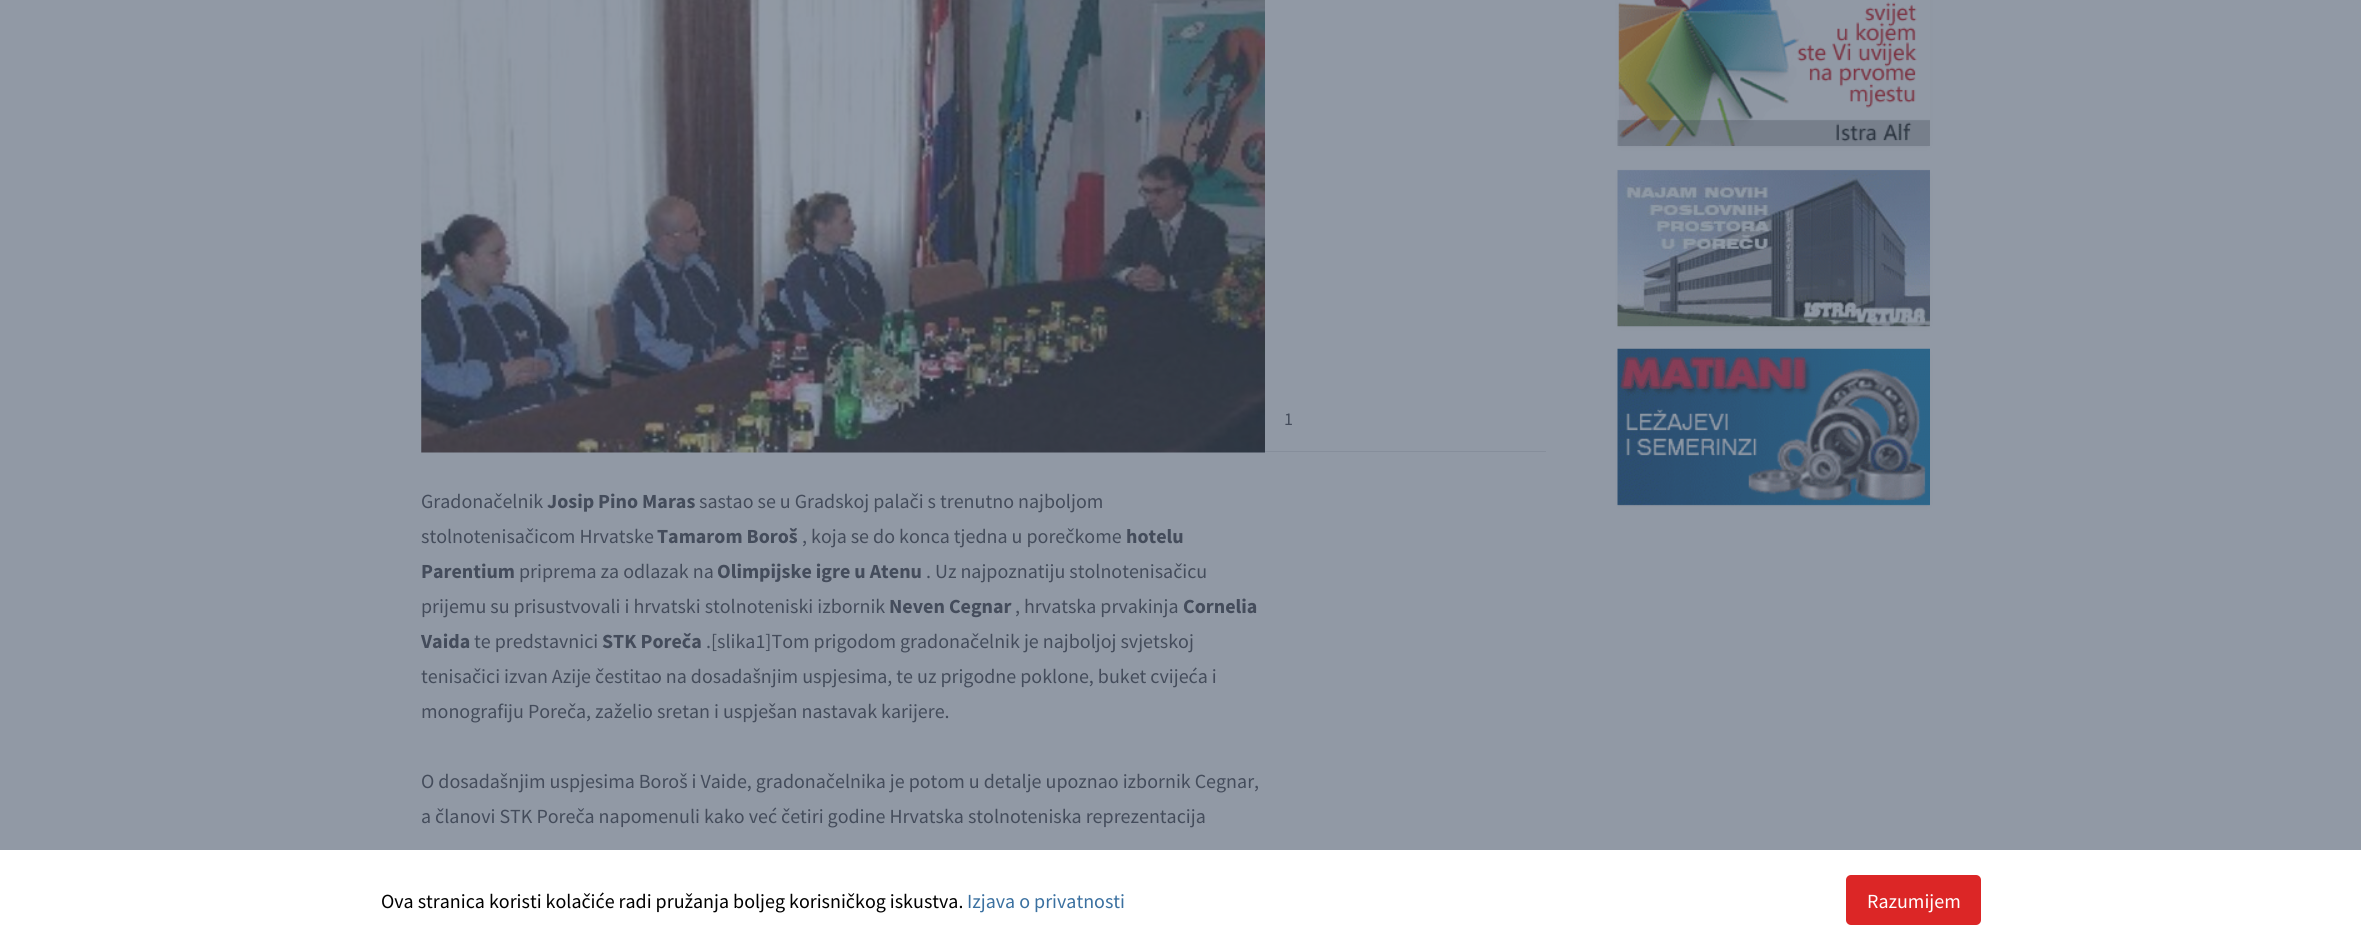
#include <cairo.h>
#include <math.h>
#include <stddef.h>


static void round_rect(cairo_t *cr, double x, double y, double w, double h, double r) {
    cairo_new_sub_path(cr);
    cairo_arc(cr, x + w - r, y + h - r, r, 0, M_PI / 2);
    cairo_arc(cr, x + r, y + h - r, r, M_PI / 2, M_PI);
    cairo_arc(cr, x + r, y + r, r, M_PI, 1.5 * M_PI);
    cairo_arc(cr, x + w - r, y + r, r, 1.5 * M_PI, 2 * M_PI);
    cairo_close_path(cr);
}

static void shadow(cairo_t *cr, double x, double y, double w, double h, double r, double blur, double alpha) {
    cairo_push_group_with_content(cr, CAIRO_CONTENT_ALPHA);
    cairo_set_operator(cr, CAIRO_OPERATOR_SOURCE);
    for (int i = 15; i >= -15 && fmin(w, h) + blur * i / 3 > 0; i -= 2) {
        double e = blur * i / 6;
        cairo_set_source_rgba(cr, 0, 0, 0, alpha * erfc((i - 1) / 8.5) / 2);
        round_rect(cr, x - e, y - e, w + 2 * e, h + 2 * e, fmax(0, fmin(r + e + blur * .6, fmin(w, h) / 2 + e)));
        cairo_fill(cr);
    }
    cairo_pattern_t *soft = cairo_pop_group(cr);
    cairo_mask(cr, soft);
    cairo_pattern_destroy(soft);
}

static void picture(cairo_t *cr, const char *path, double x, double y, double w, double h) {
    cairo_surface_t *image = cairo_image_surface_create_from_png(path);
    cairo_save(cr);
    cairo_set_source_surface(cr, image, x, y);
    cairo_rectangle(cr, x, y, w, h);
    cairo_fill(cr);
    cairo_restore(cr);
    cairo_surface_destroy(image);
}

int main(void) {
    cairo_surface_t *surface = cairo_image_surface_create(CAIRO_FORMAT_RGB24, 2361, 949);
    cairo_t *cr = cairo_create(surface);
    cairo_font_options_t *options = cairo_font_options_create();
    cairo_font_options_set_hint_metrics(options, CAIRO_HINT_METRICS_OFF);
    cairo_font_options_set_hint_style(options, CAIRO_HINT_STYLE_NONE);
    cairo_set_font_options(cr, options);
    cairo_set_miter_limit(cr, 4);
    cairo_set_source_rgb(cr, 0.569, 0.6, 0.647);
    cairo_paint(cr);
    cairo_set_source_rgb(cr, 0.169, 0.2, 0.247);
    shadow(cr, 1620, -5, 308, 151, 0, 2.5, 0.1);
    picture(cr, "img1.png", 1617, 0, 313, 146);
    shadow(cr, 1620, 175, 308, 151, 0, 2.5, 0.1);
    picture(cr, "img2.png", 1617, 169, 313, 158);
    shadow(cr, 1620, 354, 308, 151, 0, 2.5, 0.1);
    picture(cr, "img3.png", 1617, 348, 313, 158);
    picture(cr, "img4.png", 421, 0, 844, 453);
    cairo_set_source_rgb(cr, 0.525, 0.557, 0.608);
    cairo_rectangle(cr, 1265, 451, 281, 1);
    cairo_fill(cr);
    cairo_select_font_face(cr, "Source Sans Pro", CAIRO_FONT_SLANT_NORMAL, CAIRO_FONT_WEIGHT_NORMAL);
    cairo_set_font_size(cr, 18);
    cairo_set_source_rgb(cr, 0.267, 0.298, 0.357);
    cairo_move_to(cr, 1284, 425);
    cairo_show_text(cr, "1");
    cairo_set_font_size(cr, 20);
    cairo_move_to(cr, 421, 508);
    cairo_show_text(cr, "Gradonačelnik");
    cairo_select_font_face(cr, "Source Sans Pro", CAIRO_FONT_SLANT_NORMAL, CAIRO_FONT_WEIGHT_BOLD);
    cairo_move_to(cr, 547, 508);
    cairo_show_text(cr, "Josip Pino Maras");
    cairo_select_font_face(cr, "Source Sans Pro", CAIRO_FONT_SLANT_NORMAL, CAIRO_FONT_WEIGHT_NORMAL);
    cairo_move_to(cr, 699, 508);
    cairo_show_text(cr, "sastao se u Gradskoj palači s trenutno najboljom");
    cairo_move_to(cr, 421, 543);
    cairo_show_text(cr, "stolnotenisačicom Hrvatske");
    cairo_select_font_face(cr, "Source Sans Pro", CAIRO_FONT_SLANT_NORMAL, CAIRO_FONT_WEIGHT_BOLD);
    cairo_move_to(cr, 657, 543);
    cairo_show_text(cr, "Tamarom Boroš");
    cairo_select_font_face(cr, "Source Sans Pro", CAIRO_FONT_SLANT_NORMAL, CAIRO_FONT_WEIGHT_NORMAL);
    cairo_move_to(cr, 802, 543);
    cairo_show_text(cr, ", koja se do konca tjedna u porečkome");
    cairo_select_font_face(cr, "Source Sans Pro", CAIRO_FONT_SLANT_NORMAL, CAIRO_FONT_WEIGHT_BOLD);
    cairo_move_to(cr, 1126, 543);
    cairo_show_text(cr, "hotelu");
    cairo_move_to(cr, 421, 578);
    cairo_show_text(cr, "Parentium");
    cairo_select_font_face(cr, "Source Sans Pro", CAIRO_FONT_SLANT_NORMAL, CAIRO_FONT_WEIGHT_NORMAL);
    cairo_move_to(cr, 519, 578);
    cairo_show_text(cr, "priprema za odlazak na");
    cairo_select_font_face(cr, "Source Sans Pro", CAIRO_FONT_SLANT_NORMAL, CAIRO_FONT_WEIGHT_BOLD);
    cairo_move_to(cr, 717, 578);
    cairo_show_text(cr, "Olimpijske igre u Atenu");
    cairo_select_font_face(cr, "Source Sans Pro", CAIRO_FONT_SLANT_NORMAL, CAIRO_FONT_WEIGHT_NORMAL);
    cairo_move_to(cr, 926, 578);
    cairo_show_text(cr, ". Uz najpoznatiju stolnotenisačicu");
    cairo_move_to(cr, 421, 613);
    cairo_show_text(cr, "prijemu su prisustvovali i hrvatski stolnoteniski izbornik");
    cairo_select_font_face(cr, "Source Sans Pro", CAIRO_FONT_SLANT_NORMAL, CAIRO_FONT_WEIGHT_BOLD);
    cairo_move_to(cr, 889, 613);
    cairo_show_text(cr, "Neven Cegnar");
    cairo_select_font_face(cr, "Source Sans Pro", CAIRO_FONT_SLANT_NORMAL, CAIRO_FONT_WEIGHT_NORMAL);
    cairo_move_to(cr, 1015, 613);
    cairo_show_text(cr, ", hrvatska prvakinja");
    cairo_select_font_face(cr, "Source Sans Pro", CAIRO_FONT_SLANT_NORMAL, CAIRO_FONT_WEIGHT_BOLD);
    cairo_move_to(cr, 1183, 613);
    cairo_show_text(cr, "Cornelia");
    cairo_move_to(cr, 421, 648);
    cairo_show_text(cr, "Vaida");
    cairo_select_font_face(cr, "Source Sans Pro", CAIRO_FONT_SLANT_NORMAL, CAIRO_FONT_WEIGHT_NORMAL);
    cairo_move_to(cr, 474, 648);
    cairo_show_text(cr, "te predstavnici");
    cairo_select_font_face(cr, "Source Sans Pro", CAIRO_FONT_SLANT_NORMAL, CAIRO_FONT_WEIGHT_BOLD);
    cairo_move_to(cr, 602, 648);
    cairo_show_text(cr, "STK Poreča");
    cairo_select_font_face(cr, "Source Sans Pro", CAIRO_FONT_SLANT_NORMAL, CAIRO_FONT_WEIGHT_NORMAL);
    cairo_move_to(cr, 706, 648);
    cairo_show_text(cr, ".[slika1]Tom prigodom gradonačelnik je najboljoj svjetskoj");
    cairo_move_to(cr, 421, 683);
    cairo_show_text(cr, "tenisačici izvan Azije čestitao na dosadašnjim uspjesima, te uz prigodne poklone, buket cvijeća i");
    cairo_move_to(cr, 421, 718);
    cairo_show_text(cr, "monografiju Poreča, zaželio sretan i uspješan nastavak karijere.");
    cairo_move_to(cr, 421, 788);
    cairo_show_text(cr, "O dosadašnjim uspjesima Boroš i Vaide, gradonačelnika je potom u detalje upoznao izbornik Cegnar,");
    cairo_move_to(cr, 421, 823);
    cairo_show_text(cr, "a članovi STK Poreča napomenuli kako već četiri godine Hrvatska stolnoteniska reprezentacija");
    cairo_set_source_rgb(cr, 1, 1, 1);
    cairo_rectangle(cr, 0, 850, 2361, 99);
    cairo_fill(cr);
    cairo_set_source_rgb(cr, 0, 0, 0);
    cairo_move_to(cr, 381, 908);
    cairo_show_text(cr, "Ova stranica koristi kolačiće radi pružanja boljeg korisničkog iskustva.");
    cairo_set_source_rgb(cr, 0.227, 0.439, 0.627);
    cairo_move_to(cr, 967, 908);
    cairo_show_text(cr, "Izjava o privatnosti");
    cairo_set_source_rgb(cr, 0.863, 0.149, 0.149);
    round_rect(cr, 1846, 875, 135, 50, 5);
    cairo_fill(cr);
    cairo_set_source_rgb(cr, 1, 1, 1);
    cairo_move_to(cr, 1867, 908);
    cairo_show_text(cr, "Razumijem");
    cairo_surface_write_to_png(surface, "page.png");
    cairo_font_options_destroy(options);
    cairo_destroy(cr);
    cairo_surface_destroy(surface);
    return 0;
}
